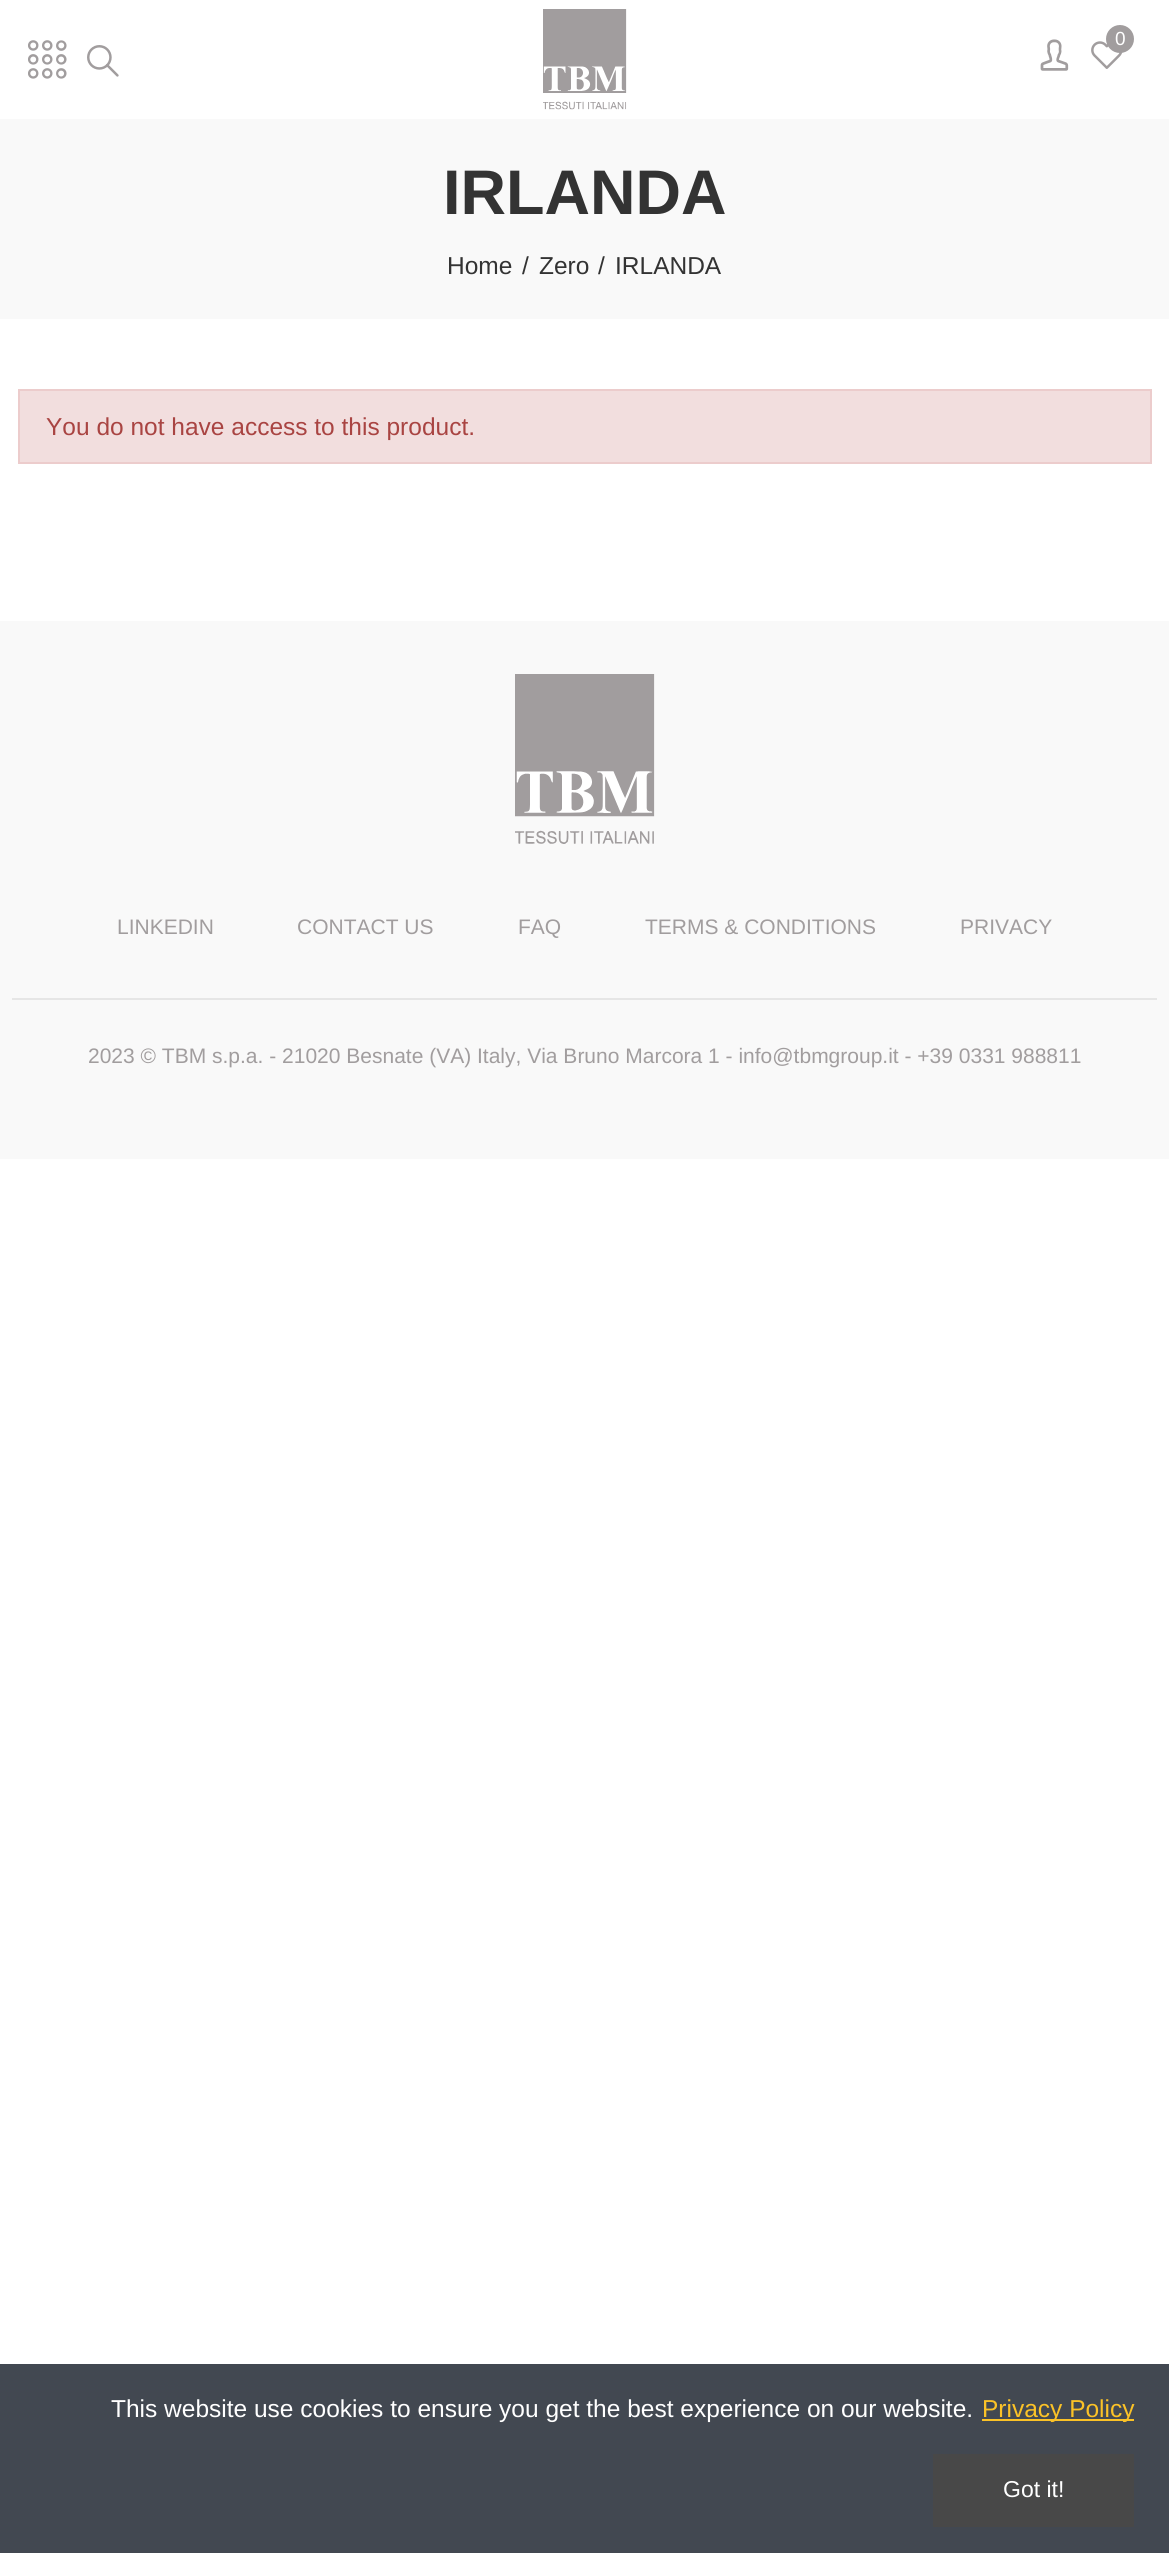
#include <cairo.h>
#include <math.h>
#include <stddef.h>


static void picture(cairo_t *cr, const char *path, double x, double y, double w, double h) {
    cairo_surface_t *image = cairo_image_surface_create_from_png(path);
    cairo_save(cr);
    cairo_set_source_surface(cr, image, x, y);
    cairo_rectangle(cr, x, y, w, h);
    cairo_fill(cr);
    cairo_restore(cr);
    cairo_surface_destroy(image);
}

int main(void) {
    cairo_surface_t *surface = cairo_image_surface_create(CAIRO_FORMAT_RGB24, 1169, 2553);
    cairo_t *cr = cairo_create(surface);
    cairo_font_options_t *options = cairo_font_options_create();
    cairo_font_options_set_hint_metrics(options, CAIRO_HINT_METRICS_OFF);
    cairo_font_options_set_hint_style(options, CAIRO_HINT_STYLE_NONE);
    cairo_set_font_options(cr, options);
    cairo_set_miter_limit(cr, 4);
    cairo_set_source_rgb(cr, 1, 1, 1);
    cairo_paint(cr);
    picture(cr, "img1.png", 543, 9, 84, 101);
    picture(cr, "img2.png", 1040, 39, 29, 32);
    picture(cr, "img3.png", 1091, 41, 32, 28);
    cairo_set_source_rgb(cr, 0.631, 0.616, 0.62);
    cairo_arc(cr, 1120, 39, 14, 0, 2 * M_PI);
    cairo_fill(cr);
    cairo_select_font_face(cr, "Liberation Sans", CAIRO_FONT_SLANT_NORMAL, CAIRO_FONT_WEIGHT_NORMAL);
    cairo_set_font_size(cr, 19);
    cairo_set_source_rgb(cr, 1, 1, 1);
    cairo_move_to(cr, 1115, 45);
    cairo_show_text(cr, "0");
    picture(cr, "img4.png", 28, 40, 39, 39);
    picture(cr, "img5.png", 87, 45, 32, 32);
    cairo_set_source_rgb(cr, 0.976, 0.976, 0.976);
    cairo_rectangle(cr, 0, 119, 1169, 200);
    cairo_fill(cr);
    cairo_select_font_face(cr, "Liberation Sans", CAIRO_FONT_SLANT_NORMAL, CAIRO_FONT_WEIGHT_BOLD);
    cairo_set_font_size(cr, 63);
    cairo_set_source_rgb(cr, 0.2, 0.2, 0.2);
    cairo_move_to(cr, 443, 214);
    cairo_show_text(cr, "IRLANDA");
    cairo_select_font_face(cr, "Liberation Sans", CAIRO_FONT_SLANT_NORMAL, CAIRO_FONT_WEIGHT_NORMAL);
    cairo_set_font_size(cr, 24.5);
    cairo_move_to(cr, 447, 274);
    cairo_show_text(cr, "Home");
    cairo_move_to(cr, 522, 274);
    cairo_show_text(cr, "/");
    cairo_move_to(cr, 539, 274);
    cairo_show_text(cr, "Zero");
    cairo_move_to(cr, 598, 274);
    cairo_show_text(cr, "/");
    cairo_move_to(cr, 615, 274);
    cairo_show_text(cr, "IRLANDA");
    cairo_set_source_rgb(cr, 0.949, 0.871, 0.871);
    cairo_rectangle(cr, 19, 390, 1132, 73);
    cairo_fill_preserve(cr);
    cairo_set_source_rgb(cr, 0.922, 0.8, 0.8);
    cairo_stroke(cr);
    cairo_set_source_rgb(cr, 0.663, 0.267, 0.259);
    cairo_move_to(cr, 46, 435);
    cairo_show_text(cr, "You do not have access to this product.");
    cairo_set_source_rgb(cr, 0.976, 0.976, 0.976);
    cairo_rectangle(cr, 0, 621, 1169, 538);
    cairo_fill(cr);
    picture(cr, "img6.png", 515, 674, 140, 170);
    cairo_set_font_size(cr, 21);
    cairo_set_source_rgb(cr, 0.631, 0.616, 0.62);
    cairo_move_to(cr, 117, 934);
    cairo_show_text(cr, "LINKEDIN");
    cairo_move_to(cr, 297, 934);
    cairo_show_text(cr, "CONTACT US");
    cairo_move_to(cr, 518, 934);
    cairo_show_text(cr, "FAQ");
    cairo_move_to(cr, 645, 934);
    cairo_show_text(cr, "TERMS & CONDITIONS");
    cairo_move_to(cr, 960, 934);
    cairo_show_text(cr, "PRIVACY");
    cairo_set_source_rgb(cr, 0.902, 0.902, 0.902);
    cairo_rectangle(cr, 12, 998, 1145, 2);
    cairo_fill(cr);
    cairo_set_source_rgb(cr, 0.631, 0.616, 0.62);
    cairo_move_to(cr, 88, 1063);
    cairo_show_text(cr, "2023 © TBM s.p.a. - 21020 Besnate (VA) Italy, Via Bruno Marcora 1 - info@tbmgroup.it - +39 0331 988811");
    cairo_set_source_rgb(cr, 0.259, 0.282, 0.318);
    cairo_rectangle(cr, 0, 2364, 1169, 189);
    cairo_fill(cr);
    cairo_set_font_size(cr, 24.5);
    cairo_set_source_rgb(cr, 1, 1, 1);
    cairo_move_to(cr, 111, 2417);
    cairo_show_text(cr, "This website use cookies to ensure you get the best experience on our website.");
    cairo_set_source_rgb(cr, 0.984, 0.761, 0.153);
    cairo_rectangle(cr, 982, 2419, 152, 2);
    cairo_fill(cr);
    cairo_move_to(cr, 982, 2417);
    cairo_show_text(cr, "Privacy Policy");
    cairo_set_source_rgb(cr, 0.282, 0.282, 0.282);
    cairo_rectangle(cr, 933, 2454, 201, 73);
    cairo_fill(cr);
    cairo_set_font_size(cr, 23);
    cairo_set_source_rgb(cr, 1, 1, 1);
    cairo_move_to(cr, 1003, 2497);
    cairo_show_text(cr, "Got it!");
    cairo_surface_write_to_png(surface, "page.png");
    cairo_font_options_destroy(options);
    cairo_destroy(cr);
    cairo_surface_destroy(surface);
    return 0;
}
